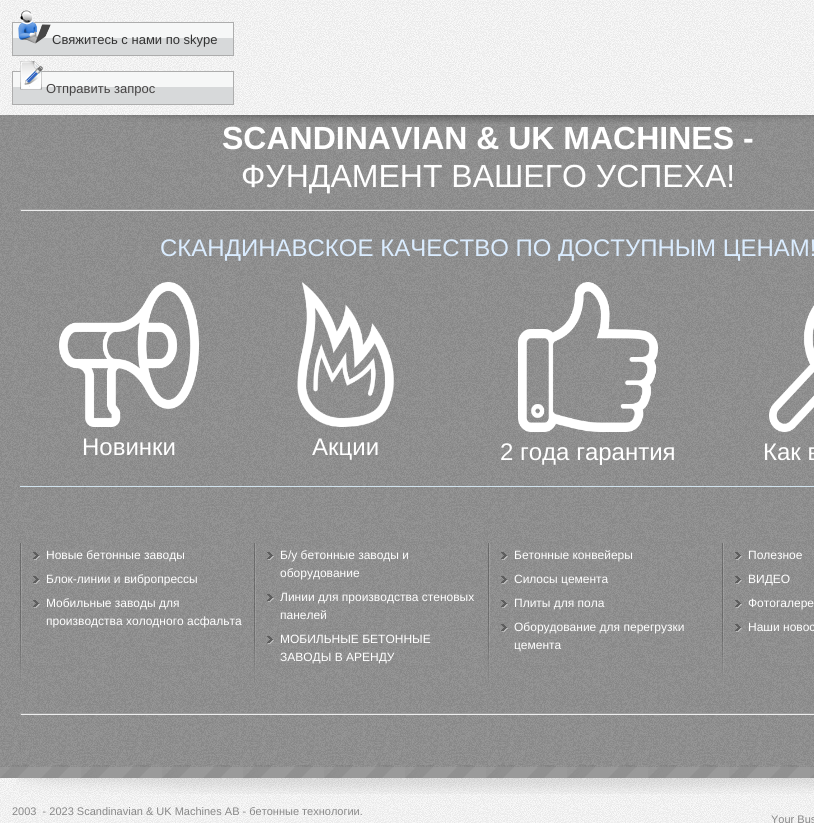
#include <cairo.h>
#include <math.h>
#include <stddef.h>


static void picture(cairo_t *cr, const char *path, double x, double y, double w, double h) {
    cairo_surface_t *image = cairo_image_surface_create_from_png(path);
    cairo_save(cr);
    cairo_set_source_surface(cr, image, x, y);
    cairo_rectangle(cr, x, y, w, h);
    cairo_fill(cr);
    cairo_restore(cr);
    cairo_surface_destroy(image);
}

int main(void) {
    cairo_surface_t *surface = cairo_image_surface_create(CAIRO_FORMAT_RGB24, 814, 823);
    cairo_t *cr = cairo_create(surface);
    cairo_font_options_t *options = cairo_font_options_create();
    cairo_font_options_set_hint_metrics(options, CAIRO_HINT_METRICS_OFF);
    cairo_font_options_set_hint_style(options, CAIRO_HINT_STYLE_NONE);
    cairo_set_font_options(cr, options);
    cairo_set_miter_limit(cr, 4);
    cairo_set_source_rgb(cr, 1, 1, 1);
    cairo_paint(cr);
    picture(cr, "img1.png", 0, 0, 814, 823);
    cairo_set_source_rgb(cr, 0.843, 0.851, 0.855);
    cairo_rectangle(cr, 13, 38, 220, 17);
    cairo_fill(cr);
    cairo_set_source_rgb(cr, 0.961, 0.965, 0.965);
    cairo_rectangle(cr, 13, 23, 220, 15);
    cairo_fill(cr);
    cairo_rectangle(cr, 12.5, 22.5, 221, 33);
    cairo_set_source_rgb(cr, 0.678, 0.678, 0.678);
    cairo_set_line_width(cr, 1);
    cairo_stroke(cr);
    picture(cr, "img2.png", 18, 10, 33, 34);
    cairo_select_font_face(cr, "Liberation Sans", CAIRO_FONT_SLANT_NORMAL, CAIRO_FONT_WEIGHT_NORMAL);
    cairo_set_font_size(cr, 13);
    cairo_set_source_rgb(cr, 0.2, 0.2, 0.2);
    cairo_move_to(cr, 52, 44);
    cairo_show_text(cr, "Свяжитесь с нами по skype");
    cairo_set_source_rgb(cr, 0.843, 0.851, 0.855);
    cairo_rectangle(cr, 13, 87, 220, 17);
    cairo_fill(cr);
    cairo_set_source_rgb(cr, 0.961, 0.965, 0.965);
    cairo_rectangle(cr, 13, 72, 220, 15);
    cairo_fill(cr);
    cairo_rectangle(cr, 12.5, 71.5, 221, 33);
    cairo_set_source_rgb(cr, 0.678, 0.678, 0.678);
    cairo_stroke(cr);
    picture(cr, "img3.png", 20, 61, 23, 29);
    cairo_set_source_rgb(cr, 0.278, 0.271, 0.271);
    cairo_move_to(cr, 46, 93);
    cairo_show_text(cr, "Отправить запрос");
    picture(cr, "img4.png", 0, 115, 814, 650);
    picture(cr, "img5.png", 0, 765, 814, 13);
    cairo_set_source_rgba(cr, 1, 1, 1, 0.1);
    cairo_rectangle(cr, 0, 115, 814, 663);
    cairo_fill(cr);
    picture(cr, "img6.png", 65, 115, 749, 9);
    cairo_select_font_face(cr, "Liberation Sans", CAIRO_FONT_SLANT_NORMAL, CAIRO_FONT_WEIGHT_BOLD);
    cairo_set_font_size(cr, 32);
    cairo_set_source_rgb(cr, 1, 1, 1);
    cairo_move_to(cr, 222, 149);
    cairo_show_text(cr, "SCANDINAVIAN & UK MACHINES -");
    cairo_select_font_face(cr, "Liberation Sans", CAIRO_FONT_SLANT_NORMAL, CAIRO_FONT_WEIGHT_NORMAL);
    cairo_move_to(cr, 241, 187);
    cairo_show_text(cr, "ФУНДАМЕНТ ВАШЕГО УСПЕХА!");
    cairo_set_source_rgb(cr, 0.624, 0.624, 0.624);
    cairo_rectangle(cr, 20, 209, 794, 1);
    cairo_fill(cr);
    cairo_set_source_rgb(cr, 0.933, 0.933, 0.933);
    cairo_rectangle(cr, 20, 210, 794, 1);
    cairo_fill(cr);
    cairo_set_source_rgb(cr, 0.624, 0.624, 0.624);
    cairo_rectangle(cr, 20, 209, 1, 2);
    cairo_fill(cr);
    cairo_set_font_size(cr, 24);
    cairo_set_source_rgb(cr, 0.855, 0.925, 1);
    cairo_move_to(cr, 160, 256);
    cairo_show_text(cr, "СКАНДИНАВСКОЕ КАЧЕСТВО ПО ДОСТУПНЫМ ЦЕНАМ!");
    picture(cr, "img7.png", 59, 282, 140, 145);
    cairo_set_source_rgb(cr, 1, 1, 1);
    cairo_move_to(cr, 82, 455);
    cairo_show_text(cr, "Новинки");
    picture(cr, "img8.png", 297, 282, 97, 145);
    cairo_move_to(cr, 312, 455);
    cairo_show_text(cr, "Акции");
    picture(cr, "img9.png", 518, 282, 140, 150);
    cairo_move_to(cr, 500, 460);
    cairo_show_text(cr, "2 года гарантия");
    cairo_set_source_rgb(cr, 0.82, 0.89, 0.933);
    cairo_rectangle(cr, 20, 486, 794, 1);
    cairo_fill(cr);
    picture(cr, "img10.png", 769, 305, 45, 127);
    cairo_set_source_rgb(cr, 1, 1, 1);
    cairo_move_to(cr, 763, 460);
    cairo_show_text(cr, "Как в");
    picture(cr, "img11.png", 20, 543, 2, 141);
    picture(cr, "img12.png", 33, 552, 7, 8);
    cairo_set_font_size(cr, 12);
    cairo_move_to(cr, 46, 559);
    cairo_show_text(cr, "Новые бетонные заводы");
    picture(cr, "img13.png", 33, 576, 7, 8);
    cairo_move_to(cr, 46, 583);
    cairo_show_text(cr, "Блок-линии и вибропрессы");
    picture(cr, "img14.png", 33, 600, 7, 8);
    cairo_move_to(cr, 46, 607);
    cairo_show_text(cr, "Мобильные заводы для");
    cairo_move_to(cr, 46, 625);
    cairo_show_text(cr, "производства холодного асфальта");
    picture(cr, "img15.png", 254, 543, 2, 141);
    picture(cr, "img16.png", 267, 552, 7, 8);
    cairo_move_to(cr, 280, 559);
    cairo_show_text(cr, "Б/у бетонные заводы и");
    cairo_move_to(cr, 280, 577);
    cairo_show_text(cr, "оборудование");
    picture(cr, "img17.png", 267, 594, 7, 8);
    cairo_move_to(cr, 280, 601);
    cairo_show_text(cr, "Линии для производства стеновых");
    cairo_move_to(cr, 280, 619);
    cairo_show_text(cr, "панелей");
    picture(cr, "img18.png", 267, 636, 7, 8);
    cairo_move_to(cr, 280, 643);
    cairo_show_text(cr, "МОБИЛЬНЫЕ БЕТОННЫЕ");
    cairo_move_to(cr, 280, 661);
    cairo_show_text(cr, "ЗАВОДЫ В АРЕНДУ");
    picture(cr, "img19.png", 488, 543, 2, 140);
    picture(cr, "img20.png", 501, 552, 7, 8);
    cairo_move_to(cr, 514, 559);
    cairo_show_text(cr, "Бетонные конвейеры");
    picture(cr, "img21.png", 501, 576, 7, 8);
    cairo_move_to(cr, 514, 583);
    cairo_show_text(cr, "Силосы цемента");
    picture(cr, "img22.png", 501, 600, 7, 8);
    cairo_move_to(cr, 514, 607);
    cairo_show_text(cr, "Плиты для пола");
    picture(cr, "img23.png", 501, 624, 7, 8);
    cairo_move_to(cr, 514, 631);
    cairo_show_text(cr, "Оборудование для перегрузки");
    cairo_move_to(cr, 514, 649);
    cairo_show_text(cr, "цемента");
    picture(cr, "img24.png", 722, 543, 2, 140);
    picture(cr, "img25.png", 735, 552, 7, 8);
    cairo_move_to(cr, 748, 559);
    cairo_show_text(cr, "Полезное");
    picture(cr, "img26.png", 735, 576, 7, 8);
    cairo_move_to(cr, 748, 583);
    cairo_show_text(cr, "ВИДЕО");
    picture(cr, "img27.png", 735, 600, 7, 8);
    cairo_move_to(cr, 748, 607);
    cairo_show_text(cr, "Фотогалере");
    picture(cr, "img28.png", 735, 624, 7, 8);
    cairo_move_to(cr, 748, 631);
    cairo_show_text(cr, "Наши новос");
    cairo_set_source_rgb(cr, 0.624, 0.624, 0.624);
    cairo_rectangle(cr, 20, 713, 794, 1);
    cairo_fill(cr);
    cairo_set_source_rgb(cr, 0.933, 0.933, 0.933);
    cairo_rectangle(cr, 20, 714, 794, 1);
    cairo_fill(cr);
    cairo_set_source_rgb(cr, 0.624, 0.624, 0.624);
    cairo_rectangle(cr, 20, 713, 1, 2);
    cairo_fill(cr);
    picture(cr, "img29.png", 20, 742, 2, 15);
    picture(cr, "img30.png", 16, 778, 798, 16);
    cairo_set_font_size(cr, 11);
    cairo_set_source_rgb(cr, 0.533, 0.533, 0.533);
    cairo_move_to(cr, 12, 815);
    cairo_show_text(cr, "2003  - 2023 Scandinavian & UK Machines AB - бетонные технологии.");
    cairo_move_to(cr, 771, 823);
    cairo_show_text(cr, "Your Bus");
    cairo_surface_write_to_png(surface, "page.png");
    cairo_font_options_destroy(options);
    cairo_destroy(cr);
    cairo_surface_destroy(surface);
    return 0;
}
